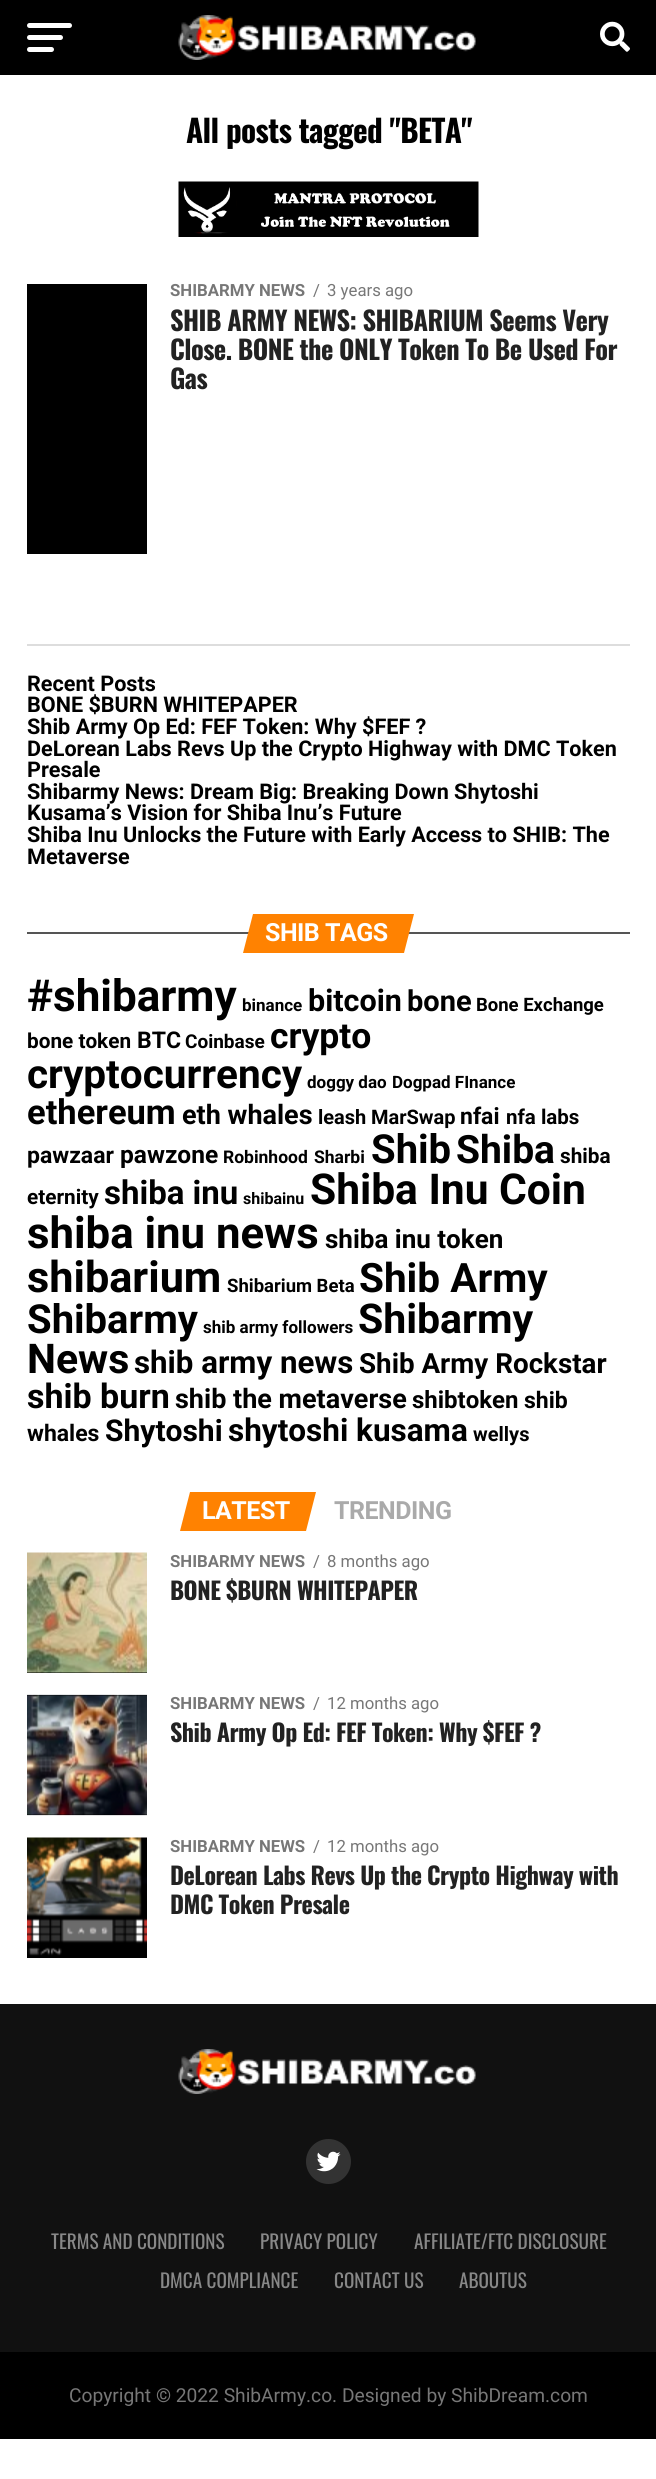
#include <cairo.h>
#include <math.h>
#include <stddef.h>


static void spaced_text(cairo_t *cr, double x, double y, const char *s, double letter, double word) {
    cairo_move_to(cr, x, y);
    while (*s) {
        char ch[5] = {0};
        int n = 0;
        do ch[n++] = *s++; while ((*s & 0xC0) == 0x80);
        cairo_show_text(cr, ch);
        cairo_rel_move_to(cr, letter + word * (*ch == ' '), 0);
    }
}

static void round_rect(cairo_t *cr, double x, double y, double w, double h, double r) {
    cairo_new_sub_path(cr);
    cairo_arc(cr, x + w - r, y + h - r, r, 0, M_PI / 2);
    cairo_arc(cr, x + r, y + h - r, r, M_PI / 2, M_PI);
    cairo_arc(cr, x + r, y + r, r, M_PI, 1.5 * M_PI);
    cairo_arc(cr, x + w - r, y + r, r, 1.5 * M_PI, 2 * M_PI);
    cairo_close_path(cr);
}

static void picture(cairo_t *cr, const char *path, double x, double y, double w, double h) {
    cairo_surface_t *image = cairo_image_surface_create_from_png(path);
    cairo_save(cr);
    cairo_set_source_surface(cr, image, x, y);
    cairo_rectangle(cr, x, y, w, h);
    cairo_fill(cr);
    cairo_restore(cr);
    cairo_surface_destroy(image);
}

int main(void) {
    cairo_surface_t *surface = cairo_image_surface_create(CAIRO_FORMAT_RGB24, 656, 2479);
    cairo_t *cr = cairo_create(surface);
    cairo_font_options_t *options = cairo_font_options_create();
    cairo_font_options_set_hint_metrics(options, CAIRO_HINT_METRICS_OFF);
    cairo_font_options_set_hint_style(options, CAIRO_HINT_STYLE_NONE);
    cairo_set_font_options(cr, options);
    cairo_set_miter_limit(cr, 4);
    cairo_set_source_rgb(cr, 1, 1, 1);
    cairo_paint(cr);
    cairo_set_source_rgb(cr, 0, 0, 0);
    cairo_rectangle(cr, 0, 0, 656, 75);
    cairo_fill(cr);
    cairo_set_source_rgb(cr, 1, 1, 1);
    round_rect(cr, 27, 23, 45, 5, 2.5);
    cairo_fill(cr);
    round_rect(cr, 27, 35, 36, 5, 2.5);
    cairo_fill(cr);
    round_rect(cr, 27, 47, 27, 5, 2.5);
    cairo_fill(cr);
    picture(cr, "img1.png", 178, 15, 298, 45);
    picture(cr, "img2.png", 600, 21, 30, 31);
    cairo_select_font_face(cr, "Oswald", CAIRO_FONT_SLANT_NORMAL, CAIRO_FONT_WEIGHT_BOLD);
    cairo_set_font_size(cr, 31.25);
    cairo_set_source_rgb(cr, 0, 0, 0);
    spaced_text(cr, 186, 143, "All posts tagged \"BETA\"", -0.6, 0);
    picture(cr, "img3.png", 178, 181, 301, 56);
    cairo_rectangle(cr, 27, 284, 120, 270);
    cairo_fill(cr);
    cairo_select_font_face(cr, "Roboto", CAIRO_FONT_SLANT_NORMAL, CAIRO_FONT_WEIGHT_BOLD);
    cairo_set_font_size(cr, 16.75);
    cairo_set_source_rgb(cr, 0.467, 0.467, 0.467);
    cairo_move_to(cr, 170, 296);
    cairo_show_text(cr, "SHIBARMY NEWS");
    cairo_select_font_face(cr, "Roboto", CAIRO_FONT_SLANT_NORMAL, CAIRO_FONT_WEIGHT_NORMAL);
    cairo_move_to(cr, 313, 296);
    cairo_show_text(cr, "/");
    cairo_move_to(cr, 327, 296);
    cairo_show_text(cr, "3 years ago");
    cairo_select_font_face(cr, "Oswald", CAIRO_FONT_SLANT_NORMAL, CAIRO_FONT_WEIGHT_BOLD);
    cairo_set_font_size(cr, 26.4);
    cairo_set_source_rgb(cr, 0.133, 0.133, 0.133);
    spaced_text(cr, 170, 331, "SHIB ARMY NEWS: SHIBARIUM Seems Very", -0.55, 0);
    spaced_text(cr, 170, 360, "Close. BONE the ONLY Token To Be Used For", -0.55, 0);
    spaced_text(cr, 170, 389, "Gas", -0.55, 0);
    cairo_set_source_rgb(cr, 0.867, 0.867, 0.867);
    cairo_rectangle(cr, 27, 644, 603, 2);
    cairo_fill(cr);
    cairo_select_font_face(cr, "Roboto", CAIRO_FONT_SLANT_NORMAL, CAIRO_FONT_WEIGHT_BOLD);
    cairo_set_font_size(cr, 21.6);
    cairo_set_source_rgb(cr, 0, 0, 0);
    cairo_move_to(cr, 27, 691);
    cairo_show_text(cr, "Recent Posts");
    cairo_move_to(cr, 27, 712);
    cairo_show_text(cr, "BONE $BURN WHITEPAPER");
    cairo_move_to(cr, 27, 734);
    cairo_show_text(cr, "Shib Army Op Ed: FEF Token: Why $FEF ?");
    cairo_move_to(cr, 27, 756);
    cairo_show_text(cr, "DeLorean Labs Revs Up the Crypto Highway with DMC Token");
    cairo_move_to(cr, 27, 777);
    cairo_show_text(cr, "Presale");
    cairo_move_to(cr, 27, 799);
    cairo_show_text(cr, "Shibarmy News: Dream Big: Breaking Down Shytoshi");
    cairo_move_to(cr, 27, 820);
    cairo_show_text(cr, "Kusama’s Vision for Shiba Inu’s Future");
    cairo_move_to(cr, 27, 842);
    cairo_show_text(cr, "Shiba Inu Unlocks the Future with Early Access to SHIB: The");
    cairo_move_to(cr, 27, 864);
    cairo_show_text(cr, "Metaverse");
    cairo_set_source_rgb(cr, 0.333, 0.333, 0.333);
    cairo_rectangle(cr, 27, 932, 603, 2);
    cairo_fill(cr);
    cairo_set_source_rgb(cr, 1, 0.51, 0.004);
    cairo_new_path(cr);
    cairo_move_to(cr, 253, 914);
    cairo_line_to(cr, 414, 914);
    cairo_line_to(cr, 404, 953);
    cairo_line_to(cr, 243, 953);
    cairo_close_path(cr);
    cairo_fill(cr);
    cairo_set_font_size(cr, 25);
    cairo_set_source_rgb(cr, 1, 1, 1);
    spaced_text(cr, 265, 941, "SHIB TAGS", -0.5, 0);
    cairo_set_font_size(cr, 44);
    cairo_set_source_rgb(cr, 0, 0, 0);
    cairo_move_to(cr, 27, 1011);
    cairo_show_text(cr, "#shibarmy");
    cairo_set_font_size(cr, 17);
    cairo_move_to(cr, 242, 1011);
    cairo_show_text(cr, "binance");
    cairo_set_font_size(cr, 30.5);
    cairo_move_to(cr, 308, 1011);
    cairo_show_text(cr, "bitcoin");
    cairo_set_font_size(cr, 29);
    cairo_move_to(cr, 407, 1011);
    cairo_show_text(cr, "bone");
    cairo_set_font_size(cr, 18.5);
    cairo_move_to(cr, 476, 1011);
    cairo_show_text(cr, "Bone Exchange");
    cairo_set_font_size(cr, 20.75);
    cairo_move_to(cr, 27, 1048);
    cairo_show_text(cr, "bone token");
    cairo_set_font_size(cr, 23);
    cairo_move_to(cr, 137, 1048);
    cairo_show_text(cr, "BTC");
    cairo_set_font_size(cr, 19);
    cairo_move_to(cr, 185, 1048);
    cairo_show_text(cr, "Coinbase");
    cairo_set_font_size(cr, 35.5);
    cairo_move_to(cr, 270, 1048);
    cairo_show_text(cr, "crypto");
    cairo_set_font_size(cr, 40.5);
    cairo_move_to(cr, 27, 1088);
    cairo_show_text(cr, "cryptocurrency");
    cairo_set_font_size(cr, 17);
    cairo_move_to(cr, 307, 1088);
    cairo_show_text(cr, "doggy dao");
    cairo_move_to(cr, 392, 1088);
    cairo_show_text(cr, "Dogpad FInance");
    cairo_set_font_size(cr, 34.5);
    cairo_move_to(cr, 27, 1124);
    cairo_show_text(cr, "ethereum");
    cairo_set_font_size(cr, 27);
    cairo_move_to(cr, 182, 1124);
    cairo_show_text(cr, "eth whales");
    cairo_set_font_size(cr, 20);
    cairo_move_to(cr, 318, 1124);
    cairo_show_text(cr, "leash");
    cairo_move_to(cr, 371, 1124);
    cairo_show_text(cr, "MarSwap");
    cairo_set_font_size(cr, 23);
    cairo_move_to(cr, 460, 1124);
    cairo_show_text(cr, "nfai");
    cairo_set_font_size(cr, 20.5);
    cairo_move_to(cr, 506, 1124);
    cairo_show_text(cr, "nfa labs");
    cairo_set_font_size(cr, 23);
    cairo_move_to(cr, 27, 1163);
    cairo_show_text(cr, "pawzaar");
    cairo_set_font_size(cr, 24.5);
    cairo_move_to(cr, 120, 1163);
    cairo_show_text(cr, "pawzone");
    cairo_set_font_size(cr, 17.5);
    cairo_move_to(cr, 223, 1163);
    cairo_show_text(cr, "Robinhood");
    cairo_move_to(cr, 314, 1163);
    cairo_show_text(cr, "Sharbi");
    cairo_set_font_size(cr, 40);
    cairo_move_to(cr, 371, 1163);
    cairo_show_text(cr, "Shib");
    cairo_set_font_size(cr, 39);
    cairo_move_to(cr, 456, 1163);
    cairo_show_text(cr, "Shiba");
    cairo_set_font_size(cr, 20.75);
    cairo_move_to(cr, 560, 1163);
    cairo_show_text(cr, "shiba");
    cairo_move_to(cr, 27, 1204);
    cairo_show_text(cr, "eternity");
    cairo_set_font_size(cr, 33);
    cairo_move_to(cr, 104, 1204);
    cairo_show_text(cr, "shiba inu");
    cairo_set_font_size(cr, 16);
    cairo_move_to(cr, 243, 1204);
    cairo_show_text(cr, "shibainu");
    cairo_set_font_size(cr, 42.5);
    cairo_move_to(cr, 310, 1204);
    cairo_show_text(cr, "Shiba Inu Coin");
    cairo_set_font_size(cr, 43.75);
    cairo_move_to(cr, 27, 1248);
    cairo_show_text(cr, "shiba inu news");
    cairo_set_font_size(cr, 26);
    cairo_move_to(cr, 325, 1248);
    cairo_show_text(cr, "shiba inu token");
    cairo_set_font_size(cr, 43.25);
    cairo_move_to(cr, 27, 1292);
    cairo_show_text(cr, "shibarium");
    cairo_set_font_size(cr, 18.5);
    cairo_move_to(cr, 227, 1292);
    cairo_show_text(cr, "Shibarium Beta");
    cairo_set_font_size(cr, 40.5);
    cairo_move_to(cr, 359, 1292);
    cairo_show_text(cr, "Shib Army");
    cairo_set_font_size(cr, 40);
    cairo_move_to(cr, 27, 1333);
    cairo_show_text(cr, "Shibarmy");
    cairo_set_font_size(cr, 17);
    cairo_move_to(cr, 203, 1333);
    cairo_show_text(cr, "shib army followers");
    cairo_set_font_size(cr, 41);
    cairo_move_to(cr, 358, 1333);
    cairo_show_text(cr, "Shibarmy");
    cairo_move_to(cr, 27, 1373);
    cairo_show_text(cr, "News");
    cairo_set_font_size(cr, 31.25);
    cairo_move_to(cr, 134, 1373);
    cairo_show_text(cr, "shib army news");
    cairo_set_font_size(cr, 27.75);
    cairo_move_to(cr, 359, 1373);
    cairo_show_text(cr, "Shib Army Rockstar");
    cairo_set_font_size(cr, 34);
    cairo_move_to(cr, 27, 1408);
    cairo_show_text(cr, "shib burn");
    cairo_set_font_size(cr, 27);
    cairo_move_to(cr, 175, 1408);
    cairo_show_text(cr, "shib the metaverse");
    cairo_set_font_size(cr, 24);
    cairo_move_to(cr, 412, 1408);
    cairo_show_text(cr, "shibtoken");
    cairo_set_font_size(cr, 23);
    cairo_move_to(cr, 524, 1408);
    cairo_show_text(cr, "shib");
    cairo_move_to(cr, 27, 1441);
    cairo_show_text(cr, "whales");
    cairo_set_font_size(cr, 30);
    cairo_move_to(cr, 105, 1441);
    cairo_show_text(cr, "Shytoshi");
    cairo_set_font_size(cr, 31.5);
    cairo_move_to(cr, 228, 1441);
    cairo_show_text(cr, "shytoshi kusama");
    cairo_set_font_size(cr, 20);
    cairo_move_to(cr, 473, 1441);
    cairo_show_text(cr, "wellys");
    cairo_set_source_rgb(cr, 1, 0.51, 0.004);
    cairo_new_path(cr);
    cairo_move_to(cr, 190, 1492);
    cairo_line_to(cr, 316, 1492);
    cairo_line_to(cr, 306, 1531);
    cairo_line_to(cr, 180, 1531);
    cairo_close_path(cr);
    cairo_fill(cr);
    cairo_set_font_size(cr, 25);
    cairo_set_source_rgb(cr, 1, 1, 1);
    spaced_text(cr, 202, 1519, "LATEST", -0.5, 0);
    cairo_set_source_rgb(cr, 0.667, 0.667, 0.667);
    spaced_text(cr, 334, 1519, "TRENDING", -0.5, 0);
    cairo_set_source_rgb(cr, 0, 0, 0);
    cairo_rectangle(cr, 27, 1672, 120, 1);
    cairo_fill(cr);
    picture(cr, "img4.png", 27, 1552, 120, 121);
    cairo_set_font_size(cr, 16.75);
    cairo_set_source_rgb(cr, 0.467, 0.467, 0.467);
    cairo_move_to(cr, 170, 1567);
    cairo_show_text(cr, "SHIBARMY NEWS");
    cairo_select_font_face(cr, "Roboto", CAIRO_FONT_SLANT_NORMAL, CAIRO_FONT_WEIGHT_NORMAL);
    cairo_move_to(cr, 313, 1567);
    cairo_show_text(cr, "/");
    cairo_move_to(cr, 327, 1567);
    cairo_show_text(cr, "8 months ago");
    cairo_select_font_face(cr, "Oswald", CAIRO_FONT_SLANT_NORMAL, CAIRO_FONT_WEIGHT_BOLD);
    cairo_set_font_size(cr, 24);
    cairo_set_source_rgb(cr, 0.133, 0.133, 0.133);
    spaced_text(cr, 170, 1600, "BONE $BURN WHITEPAPER", -0.5, 0);
    cairo_set_source_rgb(cr, 0, 0, 0);
    cairo_rectangle(cr, 27, 1695, 120, 120);
    cairo_fill(cr);
    picture(cr, "img5.png", 27, 1694, 120, 122);
    cairo_select_font_face(cr, "Roboto", CAIRO_FONT_SLANT_NORMAL, CAIRO_FONT_WEIGHT_BOLD);
    cairo_set_font_size(cr, 16.75);
    cairo_set_source_rgb(cr, 0.467, 0.467, 0.467);
    cairo_move_to(cr, 170, 1709);
    cairo_show_text(cr, "SHIBARMY NEWS");
    cairo_select_font_face(cr, "Roboto", CAIRO_FONT_SLANT_NORMAL, CAIRO_FONT_WEIGHT_NORMAL);
    cairo_move_to(cr, 313, 1709);
    cairo_show_text(cr, "/");
    cairo_move_to(cr, 327, 1709);
    cairo_show_text(cr, "12 months ago");
    cairo_select_font_face(cr, "Oswald", CAIRO_FONT_SLANT_NORMAL, CAIRO_FONT_WEIGHT_BOLD);
    cairo_set_font_size(cr, 24);
    cairo_set_source_rgb(cr, 0.133, 0.133, 0.133);
    spaced_text(cr, 170, 1742, "Shib Army Op Ed: FEF Token: Why $FEF ?", -0.5, 0);
    cairo_set_source_rgb(cr, 0, 0, 0);
    cairo_rectangle(cr, 27, 1956, 120, 2);
    cairo_fill(cr);
    picture(cr, "img6.png", 27, 1837, 120, 119);
    cairo_select_font_face(cr, "Roboto", CAIRO_FONT_SLANT_NORMAL, CAIRO_FONT_WEIGHT_BOLD);
    cairo_set_font_size(cr, 16.75);
    cairo_set_source_rgb(cr, 0.467, 0.467, 0.467);
    cairo_move_to(cr, 170, 1852);
    cairo_show_text(cr, "SHIBARMY NEWS");
    cairo_select_font_face(cr, "Roboto", CAIRO_FONT_SLANT_NORMAL, CAIRO_FONT_WEIGHT_NORMAL);
    cairo_move_to(cr, 313, 1852);
    cairo_show_text(cr, "/");
    cairo_move_to(cr, 327, 1852);
    cairo_show_text(cr, "12 months ago");
    cairo_select_font_face(cr, "Oswald", CAIRO_FONT_SLANT_NORMAL, CAIRO_FONT_WEIGHT_BOLD);
    cairo_set_font_size(cr, 24);
    cairo_set_source_rgb(cr, 0.133, 0.133, 0.133);
    spaced_text(cr, 170, 1885, "DeLorean Labs Revs Up the Crypto Highway with", -0.5, 0);
    spaced_text(cr, 170, 1914, "DMC Token Presale", -0.5, 0);
    cairo_set_source_rgb(cr, 0.067, 0.067, 0.067);
    cairo_rectangle(cr, 0, 2004, 656, 348);
    cairo_fill(cr);
    picture(cr, "img7.png", 178, 2049, 298, 45);
    cairo_set_source_rgb(cr, 0.2, 0.2, 0.2);
    cairo_arc(cr, 328.5, 2161.5, 22.5, 0, 2 * M_PI);
    cairo_fill(cr);
    picture(cr, "img8.png", 316, 2151, 25, 21);
    cairo_select_font_face(cr, "Oswald", CAIRO_FONT_SLANT_NORMAL, CAIRO_FONT_WEIGHT_NORMAL);
    cairo_set_font_size(cr, 19.2);
    cairo_set_source_rgb(cr, 0.533, 0.533, 0.533);
    cairo_move_to(cr, 51, 2249);
    cairo_show_text(cr, "TERMS AND CONDITIONS");
    cairo_move_to(cr, 260, 2249);
    cairo_show_text(cr, "PRIVACY POLICY");
    cairo_move_to(cr, 414, 2249);
    cairo_show_text(cr, "AFFILIATE/FTC DISCLOSURE");
    cairo_move_to(cr, 160, 2288);
    cairo_show_text(cr, "DMCA COMPLIANCE");
    cairo_move_to(cr, 334, 2288);
    cairo_show_text(cr, "CONTACT US");
    cairo_move_to(cr, 459, 2288);
    cairo_show_text(cr, "ABOUTUS");
    cairo_set_source_rgb(cr, 0, 0, 0);
    cairo_rectangle(cr, 0, 2352, 656, 87);
    cairo_fill(cr);
    cairo_select_font_face(cr, "Roboto", CAIRO_FONT_SLANT_NORMAL, CAIRO_FONT_WEIGHT_NORMAL);
    cairo_set_source_rgb(cr, 0.467, 0.467, 0.467);
    cairo_move_to(cr, 69, 2402);
    cairo_show_text(cr, "Copyright © 2022 ShibArmy.co. Designed by ShibDream.com");
    cairo_surface_write_to_png(surface, "page.png");
    cairo_font_options_destroy(options);
    cairo_destroy(cr);
    cairo_surface_destroy(surface);
    return 0;
}
